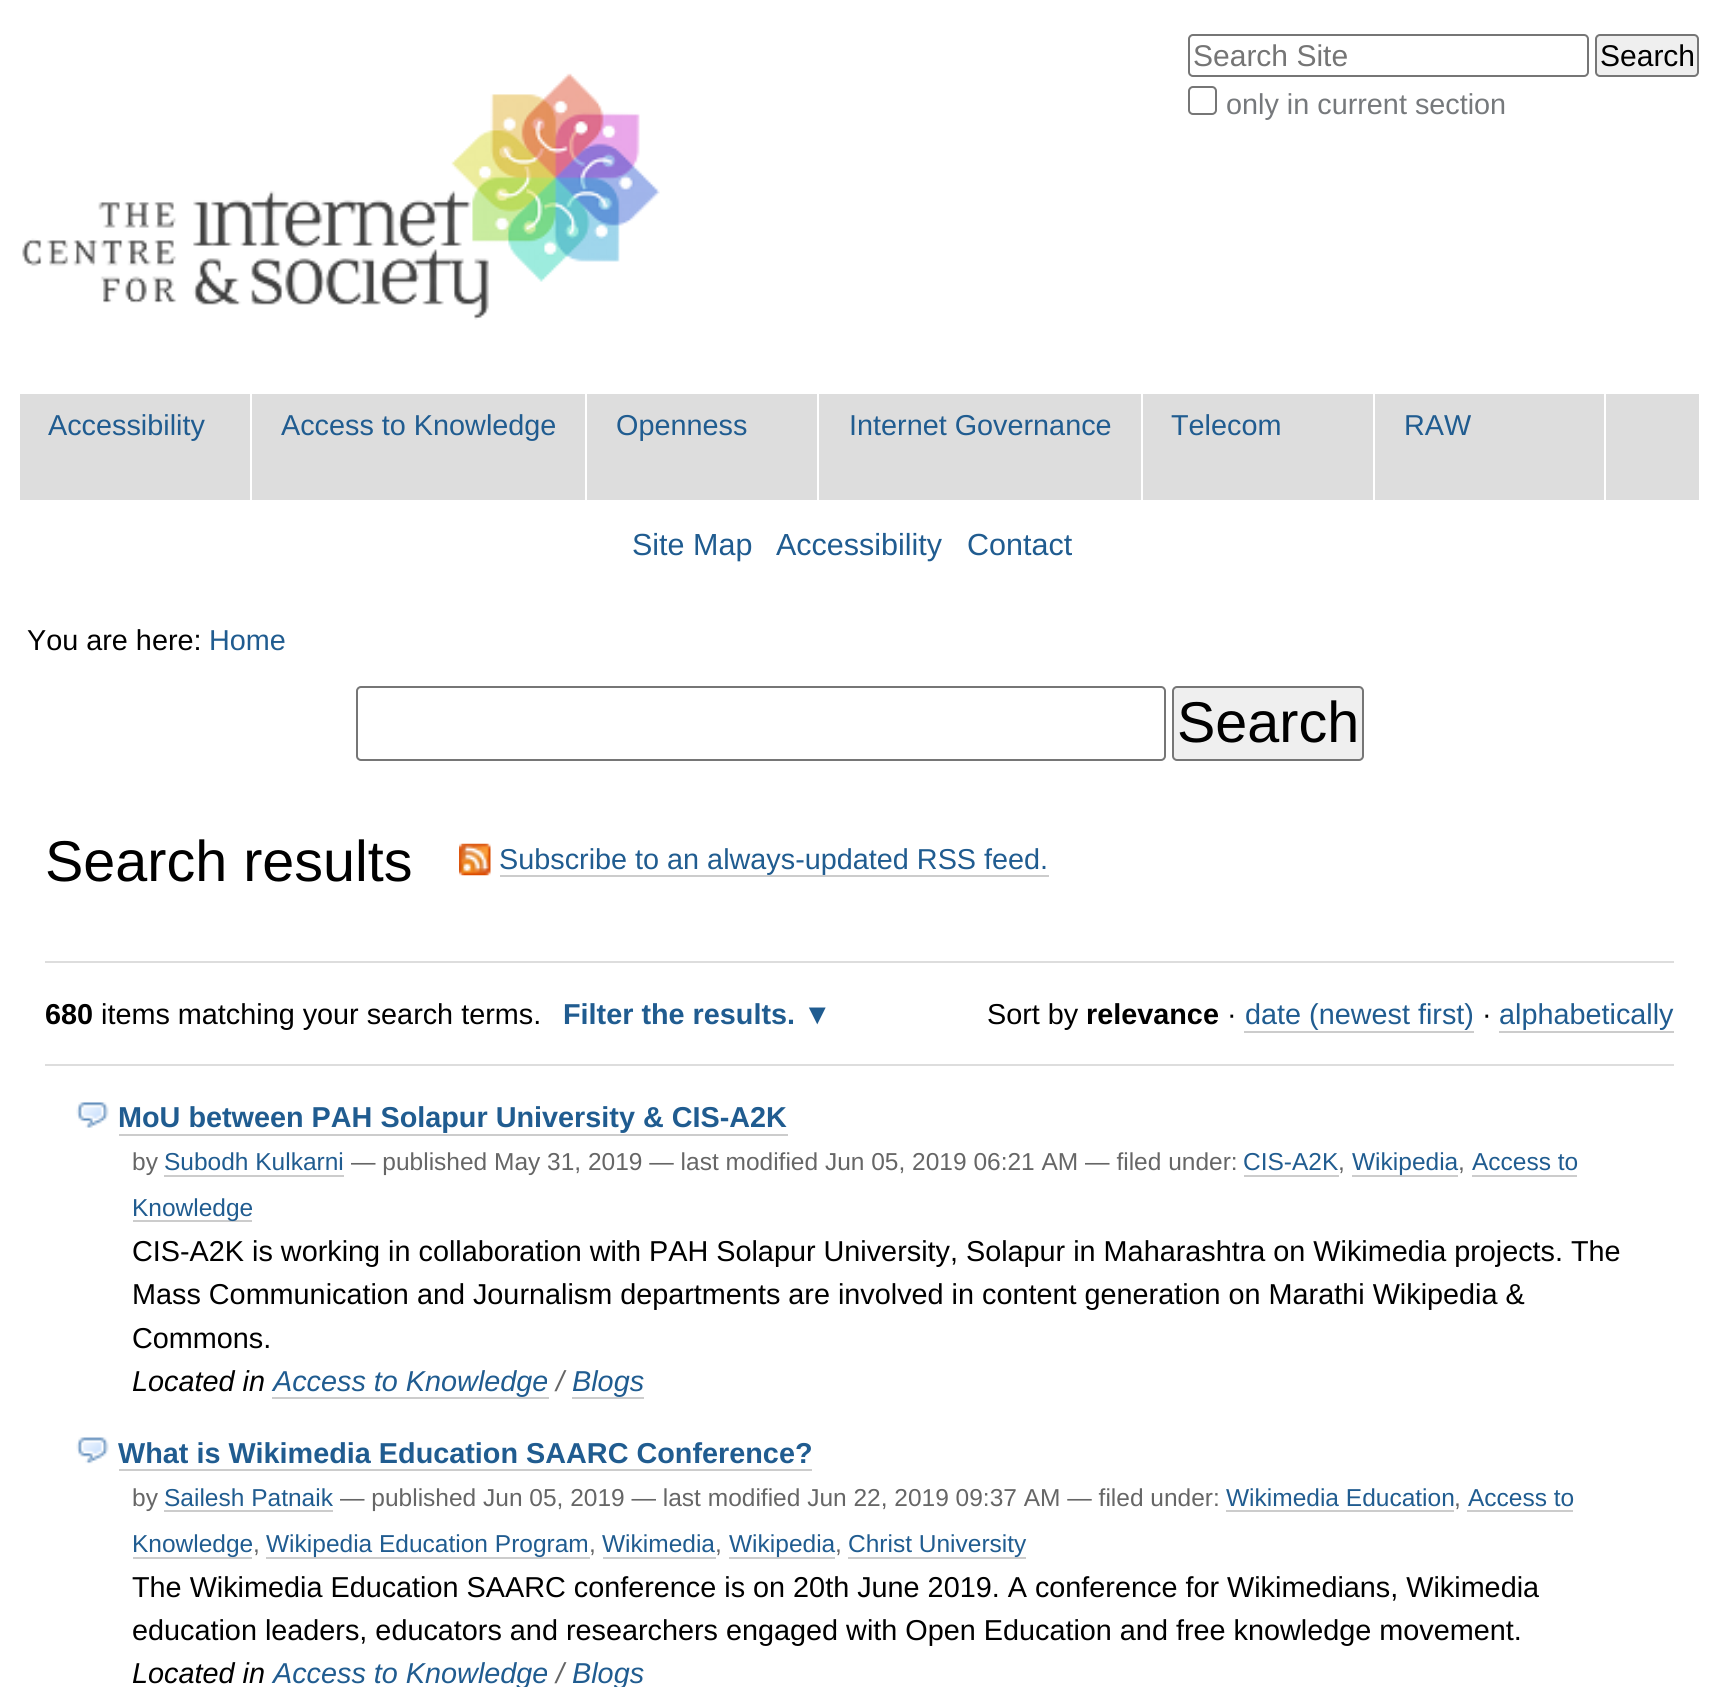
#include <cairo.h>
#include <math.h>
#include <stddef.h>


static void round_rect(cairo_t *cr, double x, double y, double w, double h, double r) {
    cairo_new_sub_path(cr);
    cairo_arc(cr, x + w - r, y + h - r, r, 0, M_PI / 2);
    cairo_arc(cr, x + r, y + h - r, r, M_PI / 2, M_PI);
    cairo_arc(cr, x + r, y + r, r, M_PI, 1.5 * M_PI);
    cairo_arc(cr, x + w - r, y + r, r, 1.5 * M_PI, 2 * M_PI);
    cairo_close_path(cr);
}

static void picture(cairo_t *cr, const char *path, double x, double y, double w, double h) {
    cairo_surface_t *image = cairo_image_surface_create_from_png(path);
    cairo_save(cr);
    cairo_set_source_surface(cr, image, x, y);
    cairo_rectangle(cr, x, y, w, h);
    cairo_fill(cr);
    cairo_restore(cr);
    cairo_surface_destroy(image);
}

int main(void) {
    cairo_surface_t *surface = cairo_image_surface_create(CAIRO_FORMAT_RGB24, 1718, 1687);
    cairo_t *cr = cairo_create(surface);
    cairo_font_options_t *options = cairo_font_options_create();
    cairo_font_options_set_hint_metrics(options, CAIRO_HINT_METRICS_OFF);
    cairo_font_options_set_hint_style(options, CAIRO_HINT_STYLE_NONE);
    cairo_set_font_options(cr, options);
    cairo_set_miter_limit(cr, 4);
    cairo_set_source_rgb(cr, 1, 1, 1);
    cairo_paint(cr);
    picture(cr, "img1.png", 22, 73, 638, 247);
    round_rect(cr, 1189, 35, 399, 41, 4);
    cairo_set_source_rgb(cr, 0.463, 0.463, 0.463);
    cairo_stroke(cr);
    cairo_select_font_face(cr, "Liberation Sans", CAIRO_FONT_SLANT_NORMAL, CAIRO_FONT_WEIGHT_NORMAL);
    cairo_set_font_size(cr, 30);
    cairo_set_source_rgb(cr, 0.459, 0.459, 0.459);
    cairo_move_to(cr, 1193, 66);
    cairo_show_text(cr, "Search Site");
    cairo_set_source_rgb(cr, 0.937, 0.937, 0.937);
    round_rect(cr, 1596, 35, 102, 41, 4);
    cairo_fill_preserve(cr);
    cairo_set_source_rgb(cr, 0.463, 0.463, 0.463);
    cairo_stroke(cr);
    cairo_set_source_rgb(cr, 0, 0, 0);
    cairo_move_to(cr, 1600, 66);
    cairo_show_text(cr, "Search");
    round_rect(cr, 1189, 87, 27, 27, 4);
    cairo_set_source_rgb(cr, 0.463, 0.463, 0.463);
    cairo_stroke(cr);
    cairo_set_font_size(cr, 28.8);
    cairo_set_source_rgb(cr, 0.463, 0.475, 0.486);
    cairo_move_to(cr, 1226, 114);
    cairo_show_text(cr, "only in current section");
    cairo_set_source_rgb(cr, 0.867, 0.867, 0.867);
    cairo_rectangle(cr, 20, 394, 1679, 106);
    cairo_fill(cr);
    cairo_set_source_rgb(cr, 1, 1, 1);
    cairo_rectangle(cr, 250, 394, 2, 106);
    cairo_fill(cr);
    cairo_set_source_rgb(cr, 0.125, 0.361, 0.565);
    cairo_move_to(cr, 48, 435);
    cairo_show_text(cr, "Accessibility");
    cairo_set_source_rgb(cr, 1, 1, 1);
    cairo_rectangle(cr, 585, 394, 2, 106);
    cairo_fill(cr);
    cairo_set_source_rgb(cr, 0.125, 0.361, 0.565);
    cairo_move_to(cr, 281, 435);
    cairo_show_text(cr, "Access to Knowledge");
    cairo_set_source_rgb(cr, 1, 1, 1);
    cairo_rectangle(cr, 817, 394, 2, 106);
    cairo_fill(cr);
    cairo_set_source_rgb(cr, 0.125, 0.361, 0.565);
    cairo_move_to(cr, 616, 435);
    cairo_show_text(cr, "Openness");
    cairo_set_source_rgb(cr, 1, 1, 1);
    cairo_rectangle(cr, 1141, 394, 2, 106);
    cairo_fill(cr);
    cairo_set_source_rgb(cr, 0.125, 0.361, 0.565);
    cairo_move_to(cr, 849, 435);
    cairo_show_text(cr, "Internet Governance");
    cairo_set_source_rgb(cr, 1, 1, 1);
    cairo_rectangle(cr, 1373, 394, 2, 106);
    cairo_fill(cr);
    cairo_set_source_rgb(cr, 0.125, 0.361, 0.565);
    cairo_move_to(cr, 1171, 435);
    cairo_show_text(cr, "Telecom");
    cairo_set_source_rgb(cr, 1, 1, 1);
    cairo_rectangle(cr, 1604, 394, 2, 106);
    cairo_fill(cr);
    cairo_set_source_rgb(cr, 0.125, 0.361, 0.565);
    cairo_move_to(cr, 1404, 435);
    cairo_show_text(cr, "RAW");
    cairo_set_font_size(cr, 30.5);
    cairo_move_to(cr, 632, 555);
    cairo_show_text(cr, "Site Map");
    cairo_move_to(cr, 776, 555);
    cairo_show_text(cr, "Accessibility");
    cairo_move_to(cr, 967, 555);
    cairo_show_text(cr, "Contact");
    cairo_set_font_size(cr, 28.8);
    cairo_set_source_rgb(cr, 0, 0, 0);
    cairo_move_to(cr, 27, 650);
    cairo_show_text(cr, "You are here:");
    cairo_set_source_rgb(cr, 0.125, 0.361, 0.565);
    cairo_move_to(cr, 209, 650);
    cairo_show_text(cr, "Home");
    round_rect(cr, 357, 687, 808, 73, 4);
    cairo_set_source_rgb(cr, 0.463, 0.463, 0.463);
    cairo_stroke(cr);
    cairo_set_source_rgb(cr, 0.937, 0.937, 0.937);
    round_rect(cr, 1173, 687, 190, 73, 4);
    cairo_fill_preserve(cr);
    cairo_set_source_rgb(cr, 0.463, 0.463, 0.463);
    cairo_stroke(cr);
    cairo_set_font_size(cr, 57.5);
    cairo_set_source_rgb(cr, 0, 0, 0);
    cairo_move_to(cr, 1177, 742);
    cairo_show_text(cr, "Search");
    cairo_move_to(cr, 45, 881);
    cairo_show_text(cr, "Search results");
    picture(cr, "img2.png", 459, 843, 32, 33);
    cairo_set_font_size(cr, 28.8);
    cairo_set_source_rgb(cr, 0.125, 0.361, 0.565);
    cairo_move_to(cr, 499, 869);
    cairo_show_text(cr, "Subscribe to an always-updated RSS feed.");
    cairo_set_source_rgb(cr, 0.8, 0.8, 0.8);
    cairo_rectangle(cr, 500, 875, 549, 2);
    cairo_fill(cr);
    cairo_set_source_rgb(cr, 0.867, 0.867, 0.867);
    cairo_rectangle(cr, 45, 961, 1629, 2);
    cairo_fill(cr);
    cairo_rectangle(cr, 45, 1064, 1629, 2);
    cairo_fill(cr);
    cairo_select_font_face(cr, "Liberation Sans", CAIRO_FONT_SLANT_NORMAL, CAIRO_FONT_WEIGHT_BOLD);
    cairo_set_source_rgb(cr, 0, 0, 0);
    cairo_move_to(cr, 45, 1024);
    cairo_show_text(cr, "680");
    cairo_select_font_face(cr, "Liberation Sans", CAIRO_FONT_SLANT_NORMAL, CAIRO_FONT_WEIGHT_NORMAL);
    cairo_move_to(cr, 101, 1024);
    cairo_show_text(cr, "items matching your search terms.");
    cairo_select_font_face(cr, "Liberation Sans", CAIRO_FONT_SLANT_NORMAL, CAIRO_FONT_WEIGHT_BOLD);
    cairo_set_source_rgb(cr, 0.125, 0.361, 0.565);
    cairo_move_to(cr, 563, 1024);
    cairo_show_text(cr, "Filter the results. ▼");
    cairo_select_font_face(cr, "Liberation Sans", CAIRO_FONT_SLANT_NORMAL, CAIRO_FONT_WEIGHT_NORMAL);
    cairo_set_source_rgb(cr, 0, 0, 0);
    cairo_move_to(cr, 987, 1024);
    cairo_show_text(cr, "Sort by");
    cairo_select_font_face(cr, "Liberation Sans", CAIRO_FONT_SLANT_NORMAL, CAIRO_FONT_WEIGHT_BOLD);
    cairo_move_to(cr, 1086, 1024);
    cairo_show_text(cr, "relevance");
    cairo_select_font_face(cr, "Liberation Sans", CAIRO_FONT_SLANT_NORMAL, CAIRO_FONT_WEIGHT_NORMAL);
    cairo_move_to(cr, 1227, 1024);
    cairo_show_text(cr, "·");
    cairo_set_source_rgb(cr, 0.125, 0.361, 0.565);
    cairo_move_to(cr, 1245, 1024);
    cairo_show_text(cr, "date (newest first)");
    cairo_set_source_rgb(cr, 0.8, 0.8, 0.8);
    cairo_rectangle(cr, 1244, 1031, 230, 2);
    cairo_fill(cr);
    cairo_set_source_rgb(cr, 0, 0, 0);
    cairo_move_to(cr, 1482, 1024);
    cairo_show_text(cr, "·");
    cairo_set_source_rgb(cr, 0.125, 0.361, 0.565);
    cairo_move_to(cr, 1499, 1024);
    cairo_show_text(cr, "alphabetically");
    cairo_set_source_rgb(cr, 0.8, 0.8, 0.8);
    cairo_rectangle(cr, 1499, 1031, 175, 2);
    cairo_fill(cr);
    picture(cr, "img3.png", 76, 1102, 33, 26);
    cairo_select_font_face(cr, "Liberation Sans", CAIRO_FONT_SLANT_NORMAL, CAIRO_FONT_WEIGHT_BOLD);
    cairo_set_source_rgb(cr, 0.125, 0.361, 0.565);
    cairo_move_to(cr, 118, 1127);
    cairo_show_text(cr, "MoU between PAH Solapur University & CIS-A2K");
    cairo_set_source_rgb(cr, 0.8, 0.8, 0.8);
    cairo_rectangle(cr, 119, 1134, 669, 2);
    cairo_fill(cr);
    cairo_select_font_face(cr, "Liberation Sans", CAIRO_FONT_SLANT_NORMAL, CAIRO_FONT_WEIGHT_NORMAL);
    cairo_set_font_size(cr, 24.5);
    cairo_set_source_rgb(cr, 0.4, 0.4, 0.4);
    cairo_move_to(cr, 132, 1170);
    cairo_show_text(cr, "by");
    cairo_set_source_rgb(cr, 0.125, 0.361, 0.565);
    cairo_move_to(cr, 164, 1170);
    cairo_show_text(cr, "Subodh Kulkarni");
    cairo_set_source_rgb(cr, 0.8, 0.8, 0.8);
    cairo_rectangle(cr, 164, 1175, 180, 2);
    cairo_fill(cr);
    cairo_set_source_rgb(cr, 0.4, 0.4, 0.4);
    cairo_move_to(cr, 351, 1170);
    cairo_show_text(cr, "— published May 31, 2019 — last modified Jun 05, 2019 06:21 AM — filed under:");
    cairo_set_source_rgb(cr, 0.125, 0.361, 0.565);
    cairo_move_to(cr, 1243, 1170);
    cairo_show_text(cr, "CIS-A2K");
    cairo_set_source_rgb(cr, 0.4, 0.4, 0.4);
    cairo_move_to(cr, 1338, 1170);
    cairo_show_text(cr, ",");
    cairo_set_source_rgb(cr, 0.8, 0.8, 0.8);
    cairo_rectangle(cr, 1244, 1175, 95, 2);
    cairo_fill(cr);
    cairo_rectangle(cr, 1352, 1175, 106, 2);
    cairo_fill(cr);
    cairo_set_source_rgb(cr, 0.125, 0.361, 0.565);
    cairo_move_to(cr, 1352, 1170);
    cairo_show_text(cr, "Wikipedia");
    cairo_set_source_rgb(cr, 0.4, 0.4, 0.4);
    cairo_move_to(cr, 1458, 1170);
    cairo_show_text(cr, ",");
    cairo_set_source_rgb(cr, 0.8, 0.8, 0.8);
    cairo_rectangle(cr, 1472, 1175, 105, 2);
    cairo_fill(cr);
    cairo_set_source_rgb(cr, 0.125, 0.361, 0.565);
    cairo_move_to(cr, 1472, 1170);
    cairo_show_text(cr, "Access to");
    cairo_set_source_rgb(cr, 0.8, 0.8, 0.8);
    cairo_rectangle(cr, 133, 1220, 119, 2);
    cairo_fill(cr);
    cairo_set_source_rgb(cr, 0.125, 0.361, 0.565);
    cairo_move_to(cr, 132, 1216);
    cairo_show_text(cr, "Knowledge");
    cairo_set_font_size(cr, 28.8);
    cairo_set_source_rgb(cr, 0, 0, 0);
    cairo_move_to(cr, 132, 1261);
    cairo_show_text(cr, "CIS-A2K is working in collaboration with PAH Solapur University, Solapur in Maharashtra on Wikimedia projects. The");
    cairo_move_to(cr, 132, 1304);
    cairo_show_text(cr, "Mass Communication and Journalism departments are involved in content generation on Marathi Wikipedia &");
    cairo_move_to(cr, 132, 1348);
    cairo_show_text(cr, "Commons.");
    cairo_select_font_face(cr, "Liberation Sans", CAIRO_FONT_SLANT_ITALIC, CAIRO_FONT_WEIGHT_NORMAL);
    cairo_move_to(cr, 132, 1391);
    cairo_show_text(cr, "Located in");
    cairo_set_source_rgb(cr, 0.125, 0.361, 0.565);
    cairo_move_to(cr, 273, 1391);
    cairo_show_text(cr, "Access to Knowledge");
    cairo_set_source_rgb(cr, 0.8, 0.8, 0.8);
    cairo_rectangle(cr, 272, 1397, 277, 2);
    cairo_fill(cr);
    cairo_set_source_rgb(cr, 0.4, 0.4, 0.4);
    cairo_move_to(cr, 556, 1391);
    cairo_show_text(cr, "/");
    cairo_set_source_rgb(cr, 0.125, 0.361, 0.565);
    cairo_move_to(cr, 572, 1391);
    cairo_show_text(cr, "Blogs");
    cairo_set_source_rgb(cr, 0.8, 0.8, 0.8);
    cairo_rectangle(cr, 572, 1397, 72, 2);
    cairo_fill(cr);
    picture(cr, "img4.png", 76, 1437, 33, 27);
    cairo_select_font_face(cr, "Liberation Sans", CAIRO_FONT_SLANT_NORMAL, CAIRO_FONT_WEIGHT_BOLD);
    cairo_set_source_rgb(cr, 0.125, 0.361, 0.565);
    cairo_move_to(cr, 118, 1463);
    cairo_show_text(cr, "What is Wikimedia Education SAARC Conference?");
    cairo_set_source_rgb(cr, 0.8, 0.8, 0.8);
    cairo_rectangle(cr, 119, 1469, 693, 2);
    cairo_fill(cr);
    cairo_select_font_face(cr, "Liberation Sans", CAIRO_FONT_SLANT_NORMAL, CAIRO_FONT_WEIGHT_NORMAL);
    cairo_set_font_size(cr, 24.5);
    cairo_set_source_rgb(cr, 0.4, 0.4, 0.4);
    cairo_move_to(cr, 132, 1506);
    cairo_show_text(cr, "by");
    cairo_set_source_rgb(cr, 0.125, 0.361, 0.565);
    cairo_move_to(cr, 164, 1506);
    cairo_show_text(cr, "Sailesh Patnaik");
    cairo_set_source_rgb(cr, 0.8, 0.8, 0.8);
    cairo_rectangle(cr, 164, 1510, 169, 2);
    cairo_fill(cr);
    cairo_set_source_rgb(cr, 0.4, 0.4, 0.4);
    cairo_move_to(cr, 340, 1506);
    cairo_show_text(cr, "— published Jun 05, 2019 — last modified Jun 22, 2019 09:37 AM — filed under:");
    cairo_set_source_rgb(cr, 0.125, 0.361, 0.565);
    cairo_move_to(cr, 1226, 1506);
    cairo_show_text(cr, "Wikimedia Education");
    cairo_set_source_rgb(cr, 0.4, 0.4, 0.4);
    cairo_move_to(cr, 1454, 1506);
    cairo_show_text(cr, ",");
    cairo_set_source_rgb(cr, 0.8, 0.8, 0.8);
    cairo_rectangle(cr, 1226, 1510, 228, 2);
    cairo_fill(cr);
    cairo_rectangle(cr, 1467, 1510, 106, 2);
    cairo_fill(cr);
    cairo_set_source_rgb(cr, 0.125, 0.361, 0.565);
    cairo_move_to(cr, 1468, 1506);
    cairo_show_text(cr, "Access to");
    cairo_set_source_rgb(cr, 0.8, 0.8, 0.8);
    cairo_rectangle(cr, 133, 1557, 119, 2);
    cairo_fill(cr);
    cairo_set_source_rgb(cr, 0.125, 0.361, 0.565);
    cairo_move_to(cr, 132, 1552);
    cairo_show_text(cr, "Knowledge");
    cairo_set_source_rgb(cr, 0.4, 0.4, 0.4);
    cairo_move_to(cr, 253, 1552);
    cairo_show_text(cr, ",");
    cairo_set_source_rgb(cr, 0.8, 0.8, 0.8);
    cairo_rectangle(cr, 266, 1557, 324, 2);
    cairo_fill(cr);
    cairo_set_source_rgb(cr, 0.125, 0.361, 0.565);
    cairo_move_to(cr, 266, 1552);
    cairo_show_text(cr, "Wikipedia Education Program");
    cairo_set_source_rgb(cr, 0.4, 0.4, 0.4);
    cairo_move_to(cr, 589, 1552);
    cairo_show_text(cr, ",");
    cairo_set_source_rgb(cr, 0.125, 0.361, 0.565);
    cairo_move_to(cr, 602, 1552);
    cairo_show_text(cr, "Wikimedia");
    cairo_set_source_rgb(cr, 0.4, 0.4, 0.4);
    cairo_move_to(cr, 715, 1552);
    cairo_show_text(cr, ",");
    cairo_set_source_rgb(cr, 0.8, 0.8, 0.8);
    cairo_rectangle(cr, 603, 1557, 113, 2);
    cairo_fill(cr);
    cairo_rectangle(cr, 729, 1557, 106, 2);
    cairo_fill(cr);
    cairo_set_source_rgb(cr, 0.125, 0.361, 0.565);
    cairo_move_to(cr, 729, 1552);
    cairo_show_text(cr, "Wikipedia");
    cairo_set_source_rgb(cr, 0.4, 0.4, 0.4);
    cairo_move_to(cr, 835, 1552);
    cairo_show_text(cr, ",");
    cairo_set_source_rgb(cr, 0.8, 0.8, 0.8);
    cairo_rectangle(cr, 848, 1557, 178, 2);
    cairo_fill(cr);
    cairo_set_source_rgb(cr, 0.125, 0.361, 0.565);
    cairo_move_to(cr, 848, 1552);
    cairo_show_text(cr, "Christ University");
    cairo_set_font_size(cr, 28.8);
    cairo_set_source_rgb(cr, 0, 0, 0);
    cairo_move_to(cr, 132, 1597);
    cairo_show_text(cr, "The Wikimedia Education SAARC conference is on 20th June 2019. A conference for Wikimedians, Wikimedia");
    cairo_move_to(cr, 132, 1640);
    cairo_show_text(cr, "education leaders, educators and researchers engaged with Open Education and free knowledge movement.");
    cairo_select_font_face(cr, "Liberation Sans", CAIRO_FONT_SLANT_ITALIC, CAIRO_FONT_WEIGHT_NORMAL);
    cairo_move_to(cr, 132, 1683);
    cairo_show_text(cr, "Located in");
    cairo_set_source_rgb(cr, 0.125, 0.361, 0.565);
    cairo_move_to(cr, 273, 1683);
    cairo_show_text(cr, "Access to Knowledge");
    cairo_set_source_rgb(cr, 0.4, 0.4, 0.4);
    cairo_move_to(cr, 556, 1683);
    cairo_show_text(cr, "/");
    cairo_set_source_rgb(cr, 0.125, 0.361, 0.565);
    cairo_move_to(cr, 572, 1683);
    cairo_show_text(cr, "Blogs");
    cairo_surface_write_to_png(surface, "page.png");
    cairo_font_options_destroy(options);
    cairo_destroy(cr);
    cairo_surface_destroy(surface);
    return 0;
}
